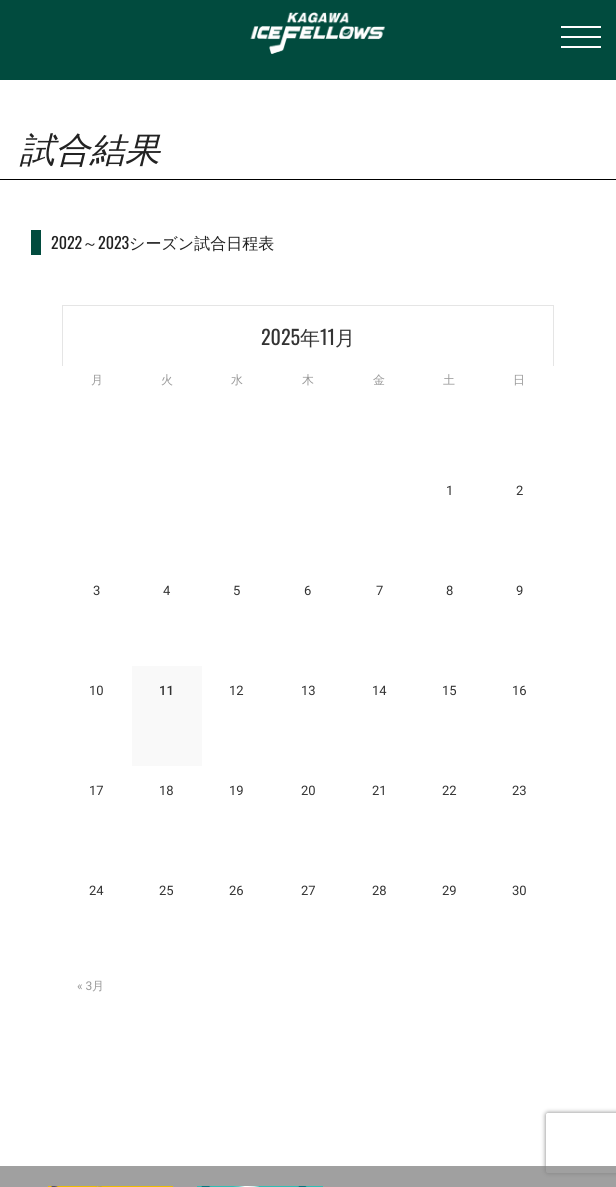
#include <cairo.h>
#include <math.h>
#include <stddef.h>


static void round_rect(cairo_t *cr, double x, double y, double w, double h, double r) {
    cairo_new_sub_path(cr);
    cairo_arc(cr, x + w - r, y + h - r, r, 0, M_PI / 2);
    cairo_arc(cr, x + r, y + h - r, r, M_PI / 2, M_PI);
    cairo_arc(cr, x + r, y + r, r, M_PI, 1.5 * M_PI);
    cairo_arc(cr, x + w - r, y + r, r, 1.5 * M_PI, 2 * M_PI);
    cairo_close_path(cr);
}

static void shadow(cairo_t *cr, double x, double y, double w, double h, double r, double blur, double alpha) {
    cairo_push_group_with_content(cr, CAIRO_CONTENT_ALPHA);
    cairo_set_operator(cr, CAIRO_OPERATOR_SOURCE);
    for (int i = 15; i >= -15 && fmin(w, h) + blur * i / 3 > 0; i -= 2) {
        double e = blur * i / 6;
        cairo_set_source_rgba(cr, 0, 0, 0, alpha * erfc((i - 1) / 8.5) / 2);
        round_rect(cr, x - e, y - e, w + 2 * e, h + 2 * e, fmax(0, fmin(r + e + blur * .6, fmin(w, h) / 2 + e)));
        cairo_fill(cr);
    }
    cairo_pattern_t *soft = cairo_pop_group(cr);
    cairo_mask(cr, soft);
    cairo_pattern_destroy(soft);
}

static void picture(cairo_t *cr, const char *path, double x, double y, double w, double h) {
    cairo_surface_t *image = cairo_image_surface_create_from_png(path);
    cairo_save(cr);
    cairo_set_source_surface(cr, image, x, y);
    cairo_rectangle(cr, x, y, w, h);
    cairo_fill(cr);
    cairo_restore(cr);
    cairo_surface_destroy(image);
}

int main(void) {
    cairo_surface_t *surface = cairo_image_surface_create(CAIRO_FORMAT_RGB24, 616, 1187);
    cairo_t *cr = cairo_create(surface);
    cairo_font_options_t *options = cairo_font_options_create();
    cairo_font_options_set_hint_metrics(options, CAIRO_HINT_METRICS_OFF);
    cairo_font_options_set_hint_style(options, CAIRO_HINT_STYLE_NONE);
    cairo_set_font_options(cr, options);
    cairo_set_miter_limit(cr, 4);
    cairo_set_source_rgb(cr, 1, 1, 1);
    cairo_paint(cr);
    cairo_set_source_rgb(cr, 0.004, 0.294, 0.243);
    cairo_rectangle(cr, 0, 0, 616, 80);
    cairo_fill(cr);
    picture(cr, "img1.png", 250, 12, 135, 42);
    cairo_set_source_rgb(cr, 1, 1, 1);
    cairo_rectangle(cr, 561, 26, 40, 2);
    cairo_fill(cr);
    cairo_rectangle(cr, 561, 36, 40, 2);
    cairo_fill(cr);
    cairo_rectangle(cr, 561, 46, 40, 2);
    cairo_fill(cr);
    cairo_set_source_rgb(cr, 0, 0, 0);
    cairo_rectangle(cr, 0, 179, 616, 1);
    cairo_fill(cr);
    cairo_select_font_face(cr, "WenQuanYi Zen Hei Medium", CAIRO_FONT_SLANT_ITALIC, CAIRO_FONT_WEIGHT_NORMAL);
    cairo_set_font_size(cr, 35);
    cairo_set_source_rgb(cr, 0.133, 0.133, 0.133);
    cairo_move_to(cr, 20, 162);
    cairo_show_text(cr, "試合結果");
    cairo_set_source_rgb(cr, 0.004, 0.294, 0.243);
    cairo_rectangle(cr, 31, 230, 10, 25);
    cairo_fill(cr);
    cairo_select_font_face(cr, "Oswald", CAIRO_FONT_SLANT_NORMAL, CAIRO_FONT_WEIGHT_NORMAL);
    cairo_set_font_size(cr, 16);
    cairo_set_source_rgb(cr, 0.133, 0.133, 0.133);
    cairo_move_to(cr, 51, 249);
    cairo_show_text(cr, "2022");
    cairo_select_font_face(cr, "WenQuanYi Zen Hei Medium", CAIRO_FONT_SLANT_NORMAL, CAIRO_FONT_WEIGHT_NORMAL);
    cairo_move_to(cr, 82, 249);
    cairo_show_text(cr, "～");
    cairo_select_font_face(cr, "Oswald", CAIRO_FONT_SLANT_NORMAL, CAIRO_FONT_WEIGHT_NORMAL);
    cairo_move_to(cr, 98, 249);
    cairo_show_text(cr, "2023");
    cairo_select_font_face(cr, "WenQuanYi Zen Hei Medium", CAIRO_FONT_SLANT_NORMAL, CAIRO_FONT_WEIGHT_NORMAL);
    cairo_move_to(cr, 129, 249);
    cairo_show_text(cr, "シーズン試合日程表");
    cairo_set_source_rgb(cr, 0.898, 0.898, 0.898);
    cairo_rectangle(cr, 62, 305, 492, 1);
    cairo_fill(cr);
    cairo_rectangle(cr, 553, 305, 1, 61);
    cairo_fill(cr);
    cairo_rectangle(cr, 62, 305, 1, 61);
    cairo_fill(cr);
    cairo_select_font_face(cr, "Oswald", CAIRO_FONT_SLANT_NORMAL, CAIRO_FONT_WEIGHT_NORMAL);
    cairo_set_font_size(cr, 20);
    cairo_set_source_rgb(cr, 0.2, 0.2, 0.2);
    cairo_move_to(cr, 261, 345);
    cairo_show_text(cr, "2025");
    cairo_select_font_face(cr, "WenQuanYi Zen Hei Medium", CAIRO_FONT_SLANT_NORMAL, CAIRO_FONT_WEIGHT_NORMAL);
    cairo_move_to(cr, 300, 345);
    cairo_show_text(cr, "年");
    cairo_select_font_face(cr, "Oswald", CAIRO_FONT_SLANT_NORMAL, CAIRO_FONT_WEIGHT_NORMAL);
    cairo_move_to(cr, 320, 345);
    cairo_show_text(cr, "11");
    cairo_select_font_face(cr, "WenQuanYi Zen Hei Medium", CAIRO_FONT_SLANT_NORMAL, CAIRO_FONT_WEIGHT_NORMAL);
    cairo_move_to(cr, 335, 345);
    cairo_show_text(cr, "月");
    cairo_set_font_size(cr, 12);
    cairo_set_source_rgb(cr, 0.6, 0.6, 0.6);
    cairo_move_to(cr, 91, 384);
    cairo_show_text(cr, "月");
    cairo_move_to(cr, 161, 384);
    cairo_show_text(cr, "火");
    cairo_move_to(cr, 231, 384);
    cairo_show_text(cr, "水");
    cairo_move_to(cr, 302, 384);
    cairo_show_text(cr, "木");
    cairo_move_to(cr, 373, 384);
    cairo_show_text(cr, "金");
    cairo_move_to(cr, 443, 384);
    cairo_show_text(cr, "土");
    cairo_move_to(cr, 513, 384);
    cairo_show_text(cr, "日");
    cairo_select_font_face(cr, "Roboto", CAIRO_FONT_SLANT_NORMAL, CAIRO_FONT_WEIGHT_NORMAL);
    cairo_set_font_size(cr, 13);
    cairo_set_source_rgb(cr, 0.2, 0.2, 0.2);
    cairo_move_to(cr, 446, 495);
    cairo_show_text(cr, "1");
    cairo_move_to(cr, 516, 495);
    cairo_show_text(cr, "2");
    cairo_move_to(cr, 93, 595);
    cairo_show_text(cr, "3");
    cairo_move_to(cr, 163, 595);
    cairo_show_text(cr, "4");
    cairo_move_to(cr, 233, 595);
    cairo_show_text(cr, "5");
    cairo_move_to(cr, 304, 595);
    cairo_show_text(cr, "6");
    cairo_move_to(cr, 376, 595);
    cairo_show_text(cr, "7");
    cairo_move_to(cr, 446, 595);
    cairo_show_text(cr, "8");
    cairo_move_to(cr, 516, 595);
    cairo_show_text(cr, "9");
    cairo_move_to(cr, 89, 695);
    cairo_show_text(cr, "10");
    cairo_set_source_rgb(cr, 0.976, 0.976, 0.976);
    cairo_rectangle(cr, 132, 666, 70, 100);
    cairo_fill(cr);
    cairo_select_font_face(cr, "Roboto Medium", CAIRO_FONT_SLANT_NORMAL, CAIRO_FONT_WEIGHT_NORMAL);
    cairo_set_source_rgb(cr, 0.2, 0.2, 0.2);
    cairo_move_to(cr, 159, 695);
    cairo_show_text(cr, "11");
    cairo_select_font_face(cr, "Roboto", CAIRO_FONT_SLANT_NORMAL, CAIRO_FONT_WEIGHT_NORMAL);
    cairo_move_to(cr, 229, 695);
    cairo_show_text(cr, "12");
    cairo_move_to(cr, 301, 695);
    cairo_show_text(cr, "13");
    cairo_move_to(cr, 372, 695);
    cairo_show_text(cr, "14");
    cairo_move_to(cr, 442, 695);
    cairo_show_text(cr, "15");
    cairo_move_to(cr, 512, 695);
    cairo_show_text(cr, "16");
    cairo_move_to(cr, 89, 795);
    cairo_show_text(cr, "17");
    cairo_move_to(cr, 159, 795);
    cairo_show_text(cr, "18");
    cairo_move_to(cr, 229, 795);
    cairo_show_text(cr, "19");
    cairo_move_to(cr, 301, 795);
    cairo_show_text(cr, "20");
    cairo_move_to(cr, 372, 795);
    cairo_show_text(cr, "21");
    cairo_move_to(cr, 442, 795);
    cairo_show_text(cr, "22");
    cairo_move_to(cr, 512, 795);
    cairo_show_text(cr, "23");
    cairo_move_to(cr, 89, 895);
    cairo_show_text(cr, "24");
    cairo_move_to(cr, 159, 895);
    cairo_show_text(cr, "25");
    cairo_move_to(cr, 229, 895);
    cairo_show_text(cr, "26");
    cairo_move_to(cr, 301, 895);
    cairo_show_text(cr, "27");
    cairo_move_to(cr, 372, 895);
    cairo_show_text(cr, "28");
    cairo_move_to(cr, 442, 895);
    cairo_show_text(cr, "29");
    cairo_move_to(cr, 512, 895);
    cairo_show_text(cr, "30");
    cairo_set_font_size(cr, 12);
    cairo_set_source_rgb(cr, 0.6, 0.6, 0.6);
    cairo_move_to(cr, 77, 990);
    cairo_show_text(cr, "« 3");
    cairo_select_font_face(cr, "WenQuanYi Zen Hei Medium", CAIRO_FONT_SLANT_NORMAL, CAIRO_FONT_WEIGHT_NORMAL);
    cairo_move_to(cr, 92, 990);
    cairo_show_text(cr, "月");
    cairo_set_source_rgb(cr, 0.627, 0.627, 0.627);
    cairo_rectangle(cr, 0, 1166, 616, 21);
    cairo_fill(cr);
    picture(cr, "img2.png", 48, 1186, 125, 1);
    picture(cr, "img3.png", 197, 1186, 126, 1);
    cairo_save(cr);
    cairo_set_fill_rule(cr, CAIRO_FILL_RULE_EVEN_ODD);
    cairo_new_path(cr);
    cairo_move_to(cr, 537, 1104);
    cairo_line_to(cr, 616, 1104);
    cairo_line_to(cr, 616, 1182);
    cairo_line_to(cr, 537, 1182);
    cairo_close_path(cr);
    cairo_move_to(cr, 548, 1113);
    cairo_line_to(cr, 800, 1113);
    cairo_curve_to(cr, 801, 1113, 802, 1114, 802, 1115);
    cairo_line_to(cr, 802, 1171);
    cairo_curve_to(cr, 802, 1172, 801, 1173, 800, 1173);
    cairo_line_to(cr, 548, 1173);
    cairo_curve_to(cr, 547, 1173, 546, 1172, 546, 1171);
    cairo_line_to(cr, 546, 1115);
    cairo_curve_to(cr, 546, 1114, 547, 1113, 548, 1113);
    cairo_close_path(cr);
    cairo_clip(cr);
    cairo_set_source_rgb(cr, 0.502, 0.502, 0.502);
    shadow(cr, 546, 1113, 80, 60, 2, 2.5, 1);
    cairo_restore(cr);
    cairo_surface_write_to_png(surface, "page.png");
    cairo_font_options_destroy(options);
    cairo_destroy(cr);
    cairo_surface_destroy(surface);
    return 0;
}
